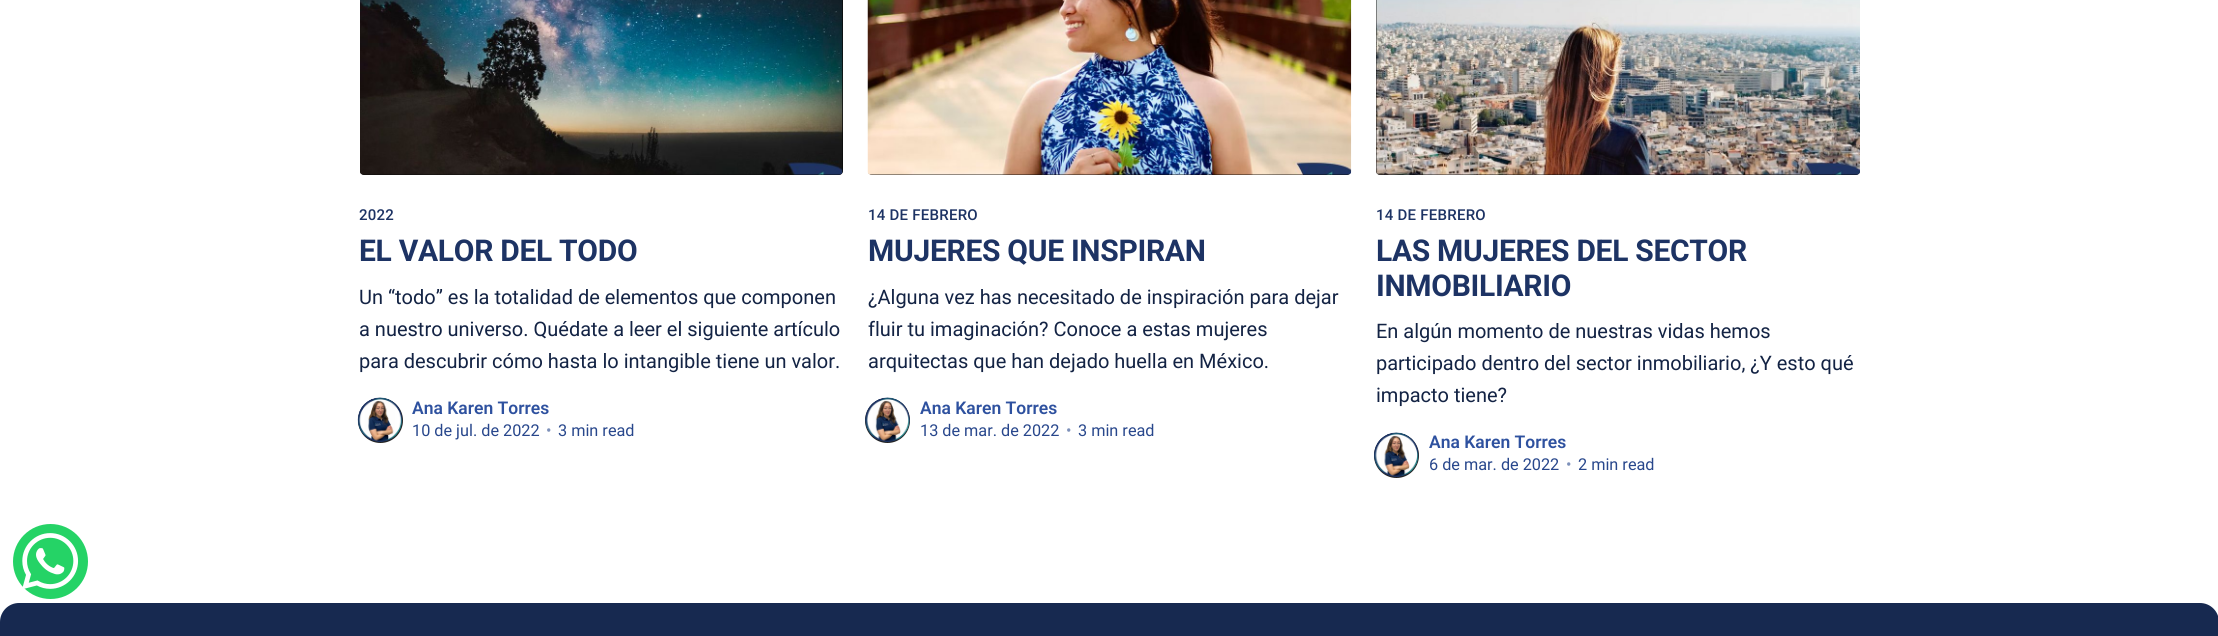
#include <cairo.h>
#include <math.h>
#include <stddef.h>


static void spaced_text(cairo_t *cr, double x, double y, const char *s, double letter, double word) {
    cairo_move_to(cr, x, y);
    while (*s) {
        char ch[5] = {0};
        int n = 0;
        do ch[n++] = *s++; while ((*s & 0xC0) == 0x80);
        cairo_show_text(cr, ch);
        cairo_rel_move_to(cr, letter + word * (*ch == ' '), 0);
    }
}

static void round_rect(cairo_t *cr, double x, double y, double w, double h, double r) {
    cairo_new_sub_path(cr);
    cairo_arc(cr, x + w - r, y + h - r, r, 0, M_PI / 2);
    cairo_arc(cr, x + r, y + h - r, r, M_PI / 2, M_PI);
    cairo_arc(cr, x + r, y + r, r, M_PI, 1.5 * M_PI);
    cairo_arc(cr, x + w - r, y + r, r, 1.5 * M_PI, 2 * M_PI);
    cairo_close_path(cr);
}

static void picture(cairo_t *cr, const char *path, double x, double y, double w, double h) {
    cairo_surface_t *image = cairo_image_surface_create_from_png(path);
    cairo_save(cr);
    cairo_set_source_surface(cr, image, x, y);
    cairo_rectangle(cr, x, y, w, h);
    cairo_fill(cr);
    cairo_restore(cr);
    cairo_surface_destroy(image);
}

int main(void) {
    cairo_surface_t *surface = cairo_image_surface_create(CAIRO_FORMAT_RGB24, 2218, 636);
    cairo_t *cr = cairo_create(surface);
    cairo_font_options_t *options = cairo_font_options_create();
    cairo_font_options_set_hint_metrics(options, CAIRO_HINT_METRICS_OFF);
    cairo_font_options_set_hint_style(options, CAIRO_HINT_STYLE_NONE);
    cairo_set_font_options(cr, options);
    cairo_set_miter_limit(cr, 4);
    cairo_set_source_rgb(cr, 1, 1, 1);
    cairo_paint(cr);
    cairo_set_source_rgb(cr, 0.039, 0.039, 0.039);
    round_rect(cr, 360, -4, 483, 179, 4);
    cairo_fill(cr);
    picture(cr, "img1.png", 360, 0, 483, 175);
    cairo_select_font_face(cr, "Roboto Medium", CAIRO_FONT_SLANT_NORMAL, CAIRO_FONT_WEIGHT_NORMAL);
    cairo_set_font_size(cr, 15);
    cairo_set_source_rgb(cr, 0.114, 0.2, 0.392);
    spaced_text(cr, 359, 220, "2022", 0.25, 0);
    cairo_select_font_face(cr, "Roboto", CAIRO_FONT_SLANT_NORMAL, CAIRO_FONT_WEIGHT_BOLD);
    cairo_set_font_size(cr, 30);
    spaced_text(cr, 359, 261, "EL VALOR DEL TODO", -0.3, 0);
    cairo_select_font_face(cr, "Roboto", CAIRO_FONT_SLANT_NORMAL, CAIRO_FONT_WEIGHT_NORMAL);
    cairo_set_font_size(cr, 20);
    cairo_set_source_rgb(cr, 0.078, 0.137, 0.267);
    cairo_move_to(cr, 359, 304);
    cairo_show_text(cr, "Un “todo” es la totalidad de elementos que componen");
    cairo_move_to(cr, 359, 336);
    cairo_show_text(cr, "a nuestro universo. Quédate a leer el siguiente artículo");
    cairo_move_to(cr, 359, 368);
    cairo_show_text(cr, "para descubrir cómo hasta lo intangible tiene un valor.");
    cairo_set_source_rgb(cr, 0.141, 0.141, 0.141);
    cairo_new_path(cr);
    cairo_arc(cr, 380.5, 420.5, 22.5, 0, 2 * M_PI);
    cairo_fill(cr);
    picture(cr, "img2.png", 357, 397, 46, 45);
    cairo_select_font_face(cr, "Roboto SemiBold", CAIRO_FONT_SLANT_NORMAL, CAIRO_FONT_WEIGHT_NORMAL);
    cairo_set_font_size(cr, 17.5);
    cairo_set_source_rgb(cr, 0.18, 0.318, 0.624);
    cairo_move_to(cr, 412, 414);
    cairo_show_text(cr, "Ana Karen Torres");
    cairo_select_font_face(cr, "Roboto", CAIRO_FONT_SLANT_NORMAL, CAIRO_FONT_WEIGHT_NORMAL);
    cairo_set_font_size(cr, 16.25);
    cairo_set_source_rgb(cr, 0.157, 0.278, 0.549);
    cairo_move_to(cr, 412, 436);
    cairo_show_text(cr, "10 de jul. de 2022");
    cairo_set_source_rgb(cr, 0.494, 0.569, 0.729);
    cairo_move_to(cr, 546, 436);
    cairo_show_text(cr, "•");
    cairo_set_source_rgb(cr, 0.157, 0.278, 0.549);
    cairo_move_to(cr, 558, 436);
    cairo_show_text(cr, "3 min read");
    cairo_set_source_rgb(cr, 0.039, 0.039, 0.039);
    round_rect(cr, 868, -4, 483, 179, 4);
    cairo_fill(cr);
    picture(cr, "img3.png", 867, 0, 485, 175);
    cairo_select_font_face(cr, "Roboto Medium", CAIRO_FONT_SLANT_NORMAL, CAIRO_FONT_WEIGHT_NORMAL);
    cairo_set_font_size(cr, 15);
    cairo_set_source_rgb(cr, 0.114, 0.2, 0.392);
    spaced_text(cr, 868, 220, "14 DE FEBRERO", 0.25, 0);
    cairo_select_font_face(cr, "Roboto", CAIRO_FONT_SLANT_NORMAL, CAIRO_FONT_WEIGHT_BOLD);
    cairo_set_font_size(cr, 30);
    spaced_text(cr, 868, 261, "MUJERES QUE INSPIRAN", -0.3, 0);
    cairo_select_font_face(cr, "Roboto", CAIRO_FONT_SLANT_NORMAL, CAIRO_FONT_WEIGHT_NORMAL);
    cairo_set_font_size(cr, 20);
    cairo_set_source_rgb(cr, 0.078, 0.137, 0.267);
    cairo_move_to(cr, 868, 304);
    cairo_show_text(cr, "¿Alguna vez has necesitado de inspiración para dejar");
    cairo_move_to(cr, 868, 336);
    cairo_show_text(cr, "fluir tu imaginación? Conoce a estas mujeres");
    cairo_move_to(cr, 868, 368);
    cairo_show_text(cr, "arquitectas que han dejado huella en México.");
    cairo_set_source_rgb(cr, 0.141, 0.141, 0.141);
    cairo_new_path(cr);
    cairo_arc(cr, 887.5, 420.5, 22.5, 0, 2 * M_PI);
    cairo_fill(cr);
    picture(cr, "img4.png", 865, 397, 45, 45);
    cairo_select_font_face(cr, "Roboto SemiBold", CAIRO_FONT_SLANT_NORMAL, CAIRO_FONT_WEIGHT_NORMAL);
    cairo_set_font_size(cr, 17.5);
    cairo_set_source_rgb(cr, 0.18, 0.318, 0.624);
    cairo_move_to(cr, 920, 414);
    cairo_show_text(cr, "Ana Karen Torres");
    cairo_select_font_face(cr, "Roboto", CAIRO_FONT_SLANT_NORMAL, CAIRO_FONT_WEIGHT_NORMAL);
    cairo_set_font_size(cr, 16.25);
    cairo_set_source_rgb(cr, 0.157, 0.278, 0.549);
    cairo_move_to(cr, 920, 436);
    cairo_show_text(cr, "13 de mar. de 2022");
    cairo_set_source_rgb(cr, 0.494, 0.569, 0.729);
    cairo_move_to(cr, 1066, 436);
    cairo_show_text(cr, "•");
    cairo_set_source_rgb(cr, 0.157, 0.278, 0.549);
    cairo_move_to(cr, 1078, 436);
    cairo_show_text(cr, "3 min read");
    cairo_set_source_rgb(cr, 0.039, 0.039, 0.039);
    round_rect(cr, 1376, -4, 484, 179, 4);
    cairo_fill(cr);
    picture(cr, "img5.png", 1376, 0, 484, 175);
    cairo_select_font_face(cr, "Roboto Medium", CAIRO_FONT_SLANT_NORMAL, CAIRO_FONT_WEIGHT_NORMAL);
    cairo_set_font_size(cr, 15);
    cairo_set_source_rgb(cr, 0.114, 0.2, 0.392);
    spaced_text(cr, 1376, 220, "14 DE FEBRERO", 0.25, 0);
    cairo_select_font_face(cr, "Roboto", CAIRO_FONT_SLANT_NORMAL, CAIRO_FONT_WEIGHT_BOLD);
    cairo_set_font_size(cr, 30);
    spaced_text(cr, 1376, 261, "LAS MUJERES DEL SECTOR", -0.3, 0);
    spaced_text(cr, 1376, 296, "INMOBILIARIO", -0.3, 0);
    cairo_select_font_face(cr, "Roboto", CAIRO_FONT_SLANT_NORMAL, CAIRO_FONT_WEIGHT_NORMAL);
    cairo_set_font_size(cr, 20);
    cairo_set_source_rgb(cr, 0.078, 0.137, 0.267);
    cairo_move_to(cr, 1376, 338);
    cairo_show_text(cr, "En algún momento de nuestras vidas hemos");
    cairo_move_to(cr, 1376, 370);
    cairo_show_text(cr, "participado dentro del sector inmobiliario, ¿Y esto qué");
    cairo_move_to(cr, 1376, 402);
    cairo_show_text(cr, "impacto tiene?");
    cairo_set_source_rgb(cr, 0.141, 0.141, 0.141);
    cairo_new_path(cr);
    cairo_arc(cr, 1396.5, 455.5, 22.5, 0, 2 * M_PI);
    cairo_fill(cr);
    picture(cr, "img6.png", 1374, 432, 45, 45);
    cairo_select_font_face(cr, "Roboto SemiBold", CAIRO_FONT_SLANT_NORMAL, CAIRO_FONT_WEIGHT_NORMAL);
    cairo_set_font_size(cr, 17.5);
    cairo_set_source_rgb(cr, 0.18, 0.318, 0.624);
    cairo_move_to(cr, 1429, 448);
    cairo_show_text(cr, "Ana Karen Torres");
    cairo_select_font_face(cr, "Roboto", CAIRO_FONT_SLANT_NORMAL, CAIRO_FONT_WEIGHT_NORMAL);
    cairo_set_font_size(cr, 16.25);
    cairo_set_source_rgb(cr, 0.157, 0.278, 0.549);
    cairo_move_to(cr, 1429, 470);
    cairo_show_text(cr, "6 de mar. de 2022");
    cairo_set_source_rgb(cr, 0.494, 0.569, 0.729);
    cairo_move_to(cr, 1566, 470);
    cairo_show_text(cr, "•");
    cairo_set_source_rgb(cr, 0.157, 0.278, 0.549);
    cairo_move_to(cr, 1578, 470);
    cairo_show_text(cr, "2 min read");
    cairo_set_source_rgb(cr, 0.145, 0.827, 0.4);
    cairo_new_path(cr);
    cairo_arc(cr, 50.5, 561.5, 37.5, 0, 2 * M_PI);
    cairo_fill(cr);
    picture(cr, "img7.png", 22, 533, 57, 56);
    cairo_set_source_rgb(cr, 0.09, 0.161, 0.314);
    round_rect(cr, 0, 603, 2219, 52, 19);
    cairo_fill(cr);
    cairo_surface_write_to_png(surface, "page.png");
    cairo_font_options_destroy(options);
    cairo_destroy(cr);
    cairo_surface_destroy(surface);
    return 0;
}
